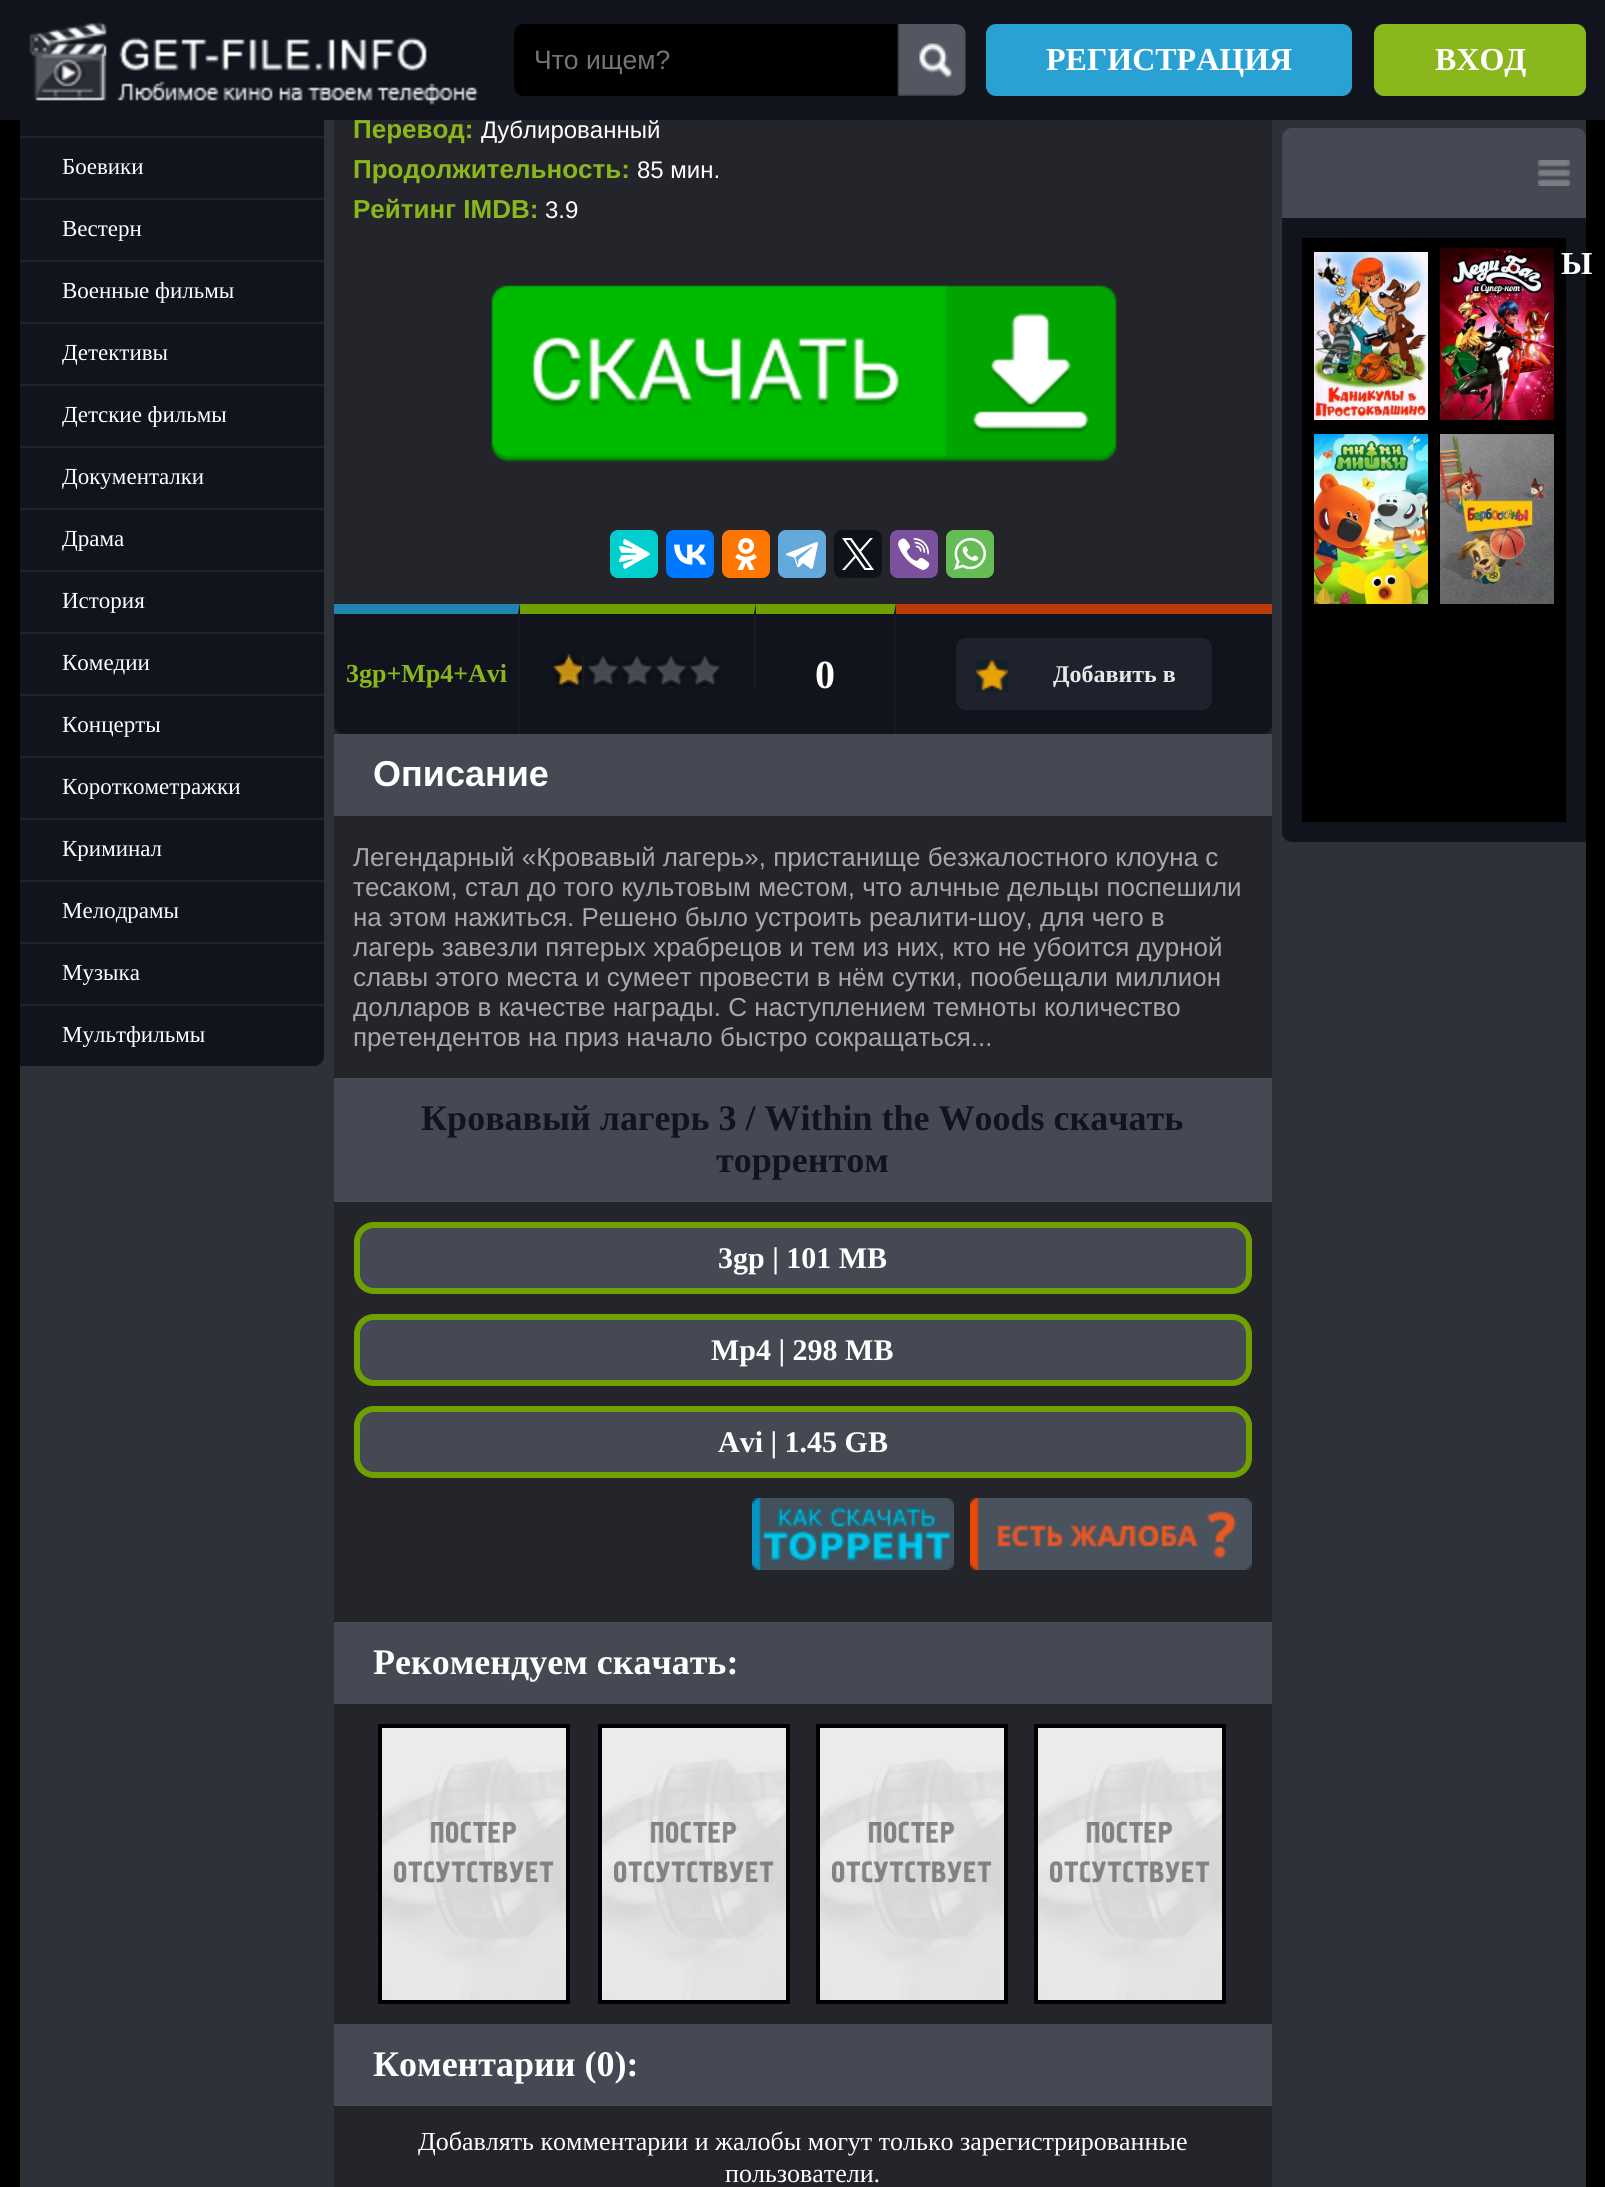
#include <cairo.h>
#include <math.h>
#include <stddef.h>


static void round_rect(cairo_t *cr, double x, double y, double w, double h, double r) {
    cairo_new_sub_path(cr);
    cairo_arc(cr, x + w - r, y + h - r, r, 0, M_PI / 2);
    cairo_arc(cr, x + r, y + h - r, r, M_PI / 2, M_PI);
    cairo_arc(cr, x + r, y + r, r, M_PI, 1.5 * M_PI);
    cairo_arc(cr, x + w - r, y + r, r, 1.5 * M_PI, 2 * M_PI);
    cairo_close_path(cr);
}

static void picture(cairo_t *cr, const char *path, double x, double y, double w, double h) {
    cairo_surface_t *image = cairo_image_surface_create_from_png(path);
    cairo_save(cr);
    cairo_set_source_surface(cr, image, x, y);
    cairo_rectangle(cr, x, y, w, h);
    cairo_fill(cr);
    cairo_restore(cr);
    cairo_surface_destroy(image);
}

int main(void) {
    cairo_surface_t *surface = cairo_image_surface_create(CAIRO_FORMAT_RGB24, 1605, 2187);
    cairo_t *cr = cairo_create(surface);
    cairo_font_options_t *options = cairo_font_options_create();
    cairo_font_options_set_hint_metrics(options, CAIRO_HINT_METRICS_OFF);
    cairo_font_options_set_hint_style(options, CAIRO_HINT_STYLE_NONE);
    cairo_set_font_options(cr, options);
    cairo_set_miter_limit(cr, 4);
    cairo_set_source_rgb(cr, 0, 0, 0);
    cairo_paint(cr);
    cairo_set_source_rgb(cr, 0.18, 0.192, 0.22);
    cairo_rectangle(cr, 20, 120, 1566, 2067);
    cairo_fill(cr);
    cairo_set_source_rgb(cr, 0.067, 0.082, 0.114);
    cairo_new_path(cr);
    cairo_move_to(cr, 20, 66);
    cairo_line_to(cr, 314, 66);
    cairo_curve_to(cr, 319.5, 66, 324, 70.5, 324, 76);
    cairo_line_to(cr, 324, 1056);
    cairo_curve_to(cr, 324, 1061.5, 319.5, 1066, 314, 1066);
    cairo_line_to(cr, 20, 1066);
    cairo_close_path(cr);
    cairo_fill(cr);
    cairo_rectangle(cr, 0, 0, 1605, 120);
    cairo_fill(cr);
    picture(cr, "img1.png", 29, 21, 450, 84);
    cairo_set_source_rgb(cr, 0, 0, 0);
    round_rect(cr, 514, 24, 452, 72, 10);
    cairo_fill(cr);
    cairo_select_font_face(cr, "Liberation Sans", CAIRO_FONT_SLANT_NORMAL, CAIRO_FONT_WEIGHT_NORMAL);
    cairo_set_font_size(cr, 26.5);
    cairo_set_source_rgb(cr, 0.459, 0.459, 0.459);
    cairo_move_to(cr, 534, 69);
    cairo_show_text(cr, "Что ищем?");
    picture(cr, "img2.png", 897, 24, 69, 72);
    cairo_set_source_rgb(cr, 0.165, 0.631, 0.827);
    round_rect(cr, 986, 24, 366, 72, 10);
    cairo_fill(cr);
    cairo_select_font_face(cr, "Liberation Serif", CAIRO_FONT_SLANT_NORMAL, CAIRO_FONT_WEIGHT_BOLD);
    cairo_set_font_size(cr, 32);
    cairo_set_source_rgb(cr, 1, 1, 1);
    cairo_move_to(cr, 1046, 70);
    cairo_show_text(cr, "РЕГИСТРАЦИЯ");
    cairo_set_source_rgb(cr, 0.541, 0.718, 0.106);
    round_rect(cr, 1374, 24, 212, 72, 10);
    cairo_fill(cr);
    cairo_set_source_rgb(cr, 1, 1, 1);
    cairo_move_to(cr, 1435, 70);
    cairo_show_text(cr, "ВХОД");
    cairo_set_source_rgb(cr, 0.122, 0.137, 0.165);
    cairo_rectangle(cr, 20, 136, 304, 2);
    cairo_fill(cr);
    cairo_rectangle(cr, 20, 198, 304, 2);
    cairo_fill(cr);
    cairo_select_font_face(cr, "Liberation Serif", CAIRO_FONT_SLANT_NORMAL, CAIRO_FONT_WEIGHT_NORMAL);
    cairo_set_font_size(cr, 23);
    cairo_set_source_rgb(cr, 1, 1, 1);
    cairo_move_to(cr, 62, 174);
    cairo_show_text(cr, "Боевики");
    cairo_set_source_rgb(cr, 0.122, 0.137, 0.165);
    cairo_rectangle(cr, 20, 260, 304, 2);
    cairo_fill(cr);
    cairo_set_source_rgb(cr, 1, 1, 1);
    cairo_move_to(cr, 62, 236);
    cairo_show_text(cr, "Вестерн");
    cairo_set_source_rgb(cr, 0.122, 0.137, 0.165);
    cairo_rectangle(cr, 20, 322, 304, 2);
    cairo_fill(cr);
    cairo_set_source_rgb(cr, 1, 1, 1);
    cairo_move_to(cr, 62, 298);
    cairo_show_text(cr, "Военные фильмы");
    cairo_set_source_rgb(cr, 0.122, 0.137, 0.165);
    cairo_rectangle(cr, 20, 384, 304, 2);
    cairo_fill(cr);
    cairo_set_source_rgb(cr, 1, 1, 1);
    cairo_move_to(cr, 62, 360);
    cairo_show_text(cr, "Детективы");
    cairo_set_source_rgb(cr, 0.122, 0.137, 0.165);
    cairo_rectangle(cr, 20, 446, 304, 2);
    cairo_fill(cr);
    cairo_set_source_rgb(cr, 1, 1, 1);
    cairo_move_to(cr, 62, 422);
    cairo_show_text(cr, "Детские фильмы");
    cairo_set_source_rgb(cr, 0.122, 0.137, 0.165);
    cairo_rectangle(cr, 20, 508, 304, 2);
    cairo_fill(cr);
    cairo_set_source_rgb(cr, 1, 1, 1);
    cairo_move_to(cr, 62, 484);
    cairo_show_text(cr, "Документалки");
    cairo_set_source_rgb(cr, 0.122, 0.137, 0.165);
    cairo_rectangle(cr, 20, 570, 304, 2);
    cairo_fill(cr);
    cairo_set_source_rgb(cr, 1, 1, 1);
    cairo_move_to(cr, 62, 546);
    cairo_show_text(cr, "Драма");
    cairo_set_source_rgb(cr, 0.122, 0.137, 0.165);
    cairo_rectangle(cr, 20, 632, 304, 2);
    cairo_fill(cr);
    cairo_set_source_rgb(cr, 1, 1, 1);
    cairo_move_to(cr, 62, 608);
    cairo_show_text(cr, "История");
    cairo_set_source_rgb(cr, 0.122, 0.137, 0.165);
    cairo_rectangle(cr, 20, 694, 304, 2);
    cairo_fill(cr);
    cairo_set_source_rgb(cr, 1, 1, 1);
    cairo_move_to(cr, 62, 670);
    cairo_show_text(cr, "Комедии");
    cairo_set_source_rgb(cr, 0.122, 0.137, 0.165);
    cairo_rectangle(cr, 20, 756, 304, 2);
    cairo_fill(cr);
    cairo_set_source_rgb(cr, 1, 1, 1);
    cairo_move_to(cr, 62, 732);
    cairo_show_text(cr, "Концерты");
    cairo_set_source_rgb(cr, 0.122, 0.137, 0.165);
    cairo_rectangle(cr, 20, 818, 304, 2);
    cairo_fill(cr);
    cairo_set_source_rgb(cr, 1, 1, 1);
    cairo_move_to(cr, 62, 794);
    cairo_show_text(cr, "Короткометражки");
    cairo_set_source_rgb(cr, 0.122, 0.137, 0.165);
    cairo_rectangle(cr, 20, 880, 304, 2);
    cairo_fill(cr);
    cairo_set_source_rgb(cr, 1, 1, 1);
    cairo_move_to(cr, 62, 856);
    cairo_show_text(cr, "Криминал");
    cairo_set_source_rgb(cr, 0.122, 0.137, 0.165);
    cairo_rectangle(cr, 20, 942, 304, 2);
    cairo_fill(cr);
    cairo_set_source_rgb(cr, 1, 1, 1);
    cairo_move_to(cr, 62, 918);
    cairo_show_text(cr, "Мелодрамы");
    cairo_set_source_rgb(cr, 0.122, 0.137, 0.165);
    cairo_rectangle(cr, 20, 1004, 304, 2);
    cairo_fill(cr);
    cairo_set_source_rgb(cr, 1, 1, 1);
    cairo_move_to(cr, 62, 980);
    cairo_show_text(cr, "Музыка");
    cairo_move_to(cr, 62, 1042);
    cairo_show_text(cr, "Мультфильмы");
    cairo_set_source_rgb(cr, 0.137, 0.145, 0.169);
    cairo_rectangle(cr, 334, 120, 938, 2067);
    cairo_fill(cr);
    cairo_select_font_face(cr, "Liberation Sans", CAIRO_FONT_SLANT_NORMAL, CAIRO_FONT_WEIGHT_BOLD);
    cairo_set_font_size(cr, 26);
    cairo_set_source_rgb(cr, 0.541, 0.718, 0.106);
    cairo_move_to(cr, 353, 138);
    cairo_show_text(cr, "Перевод:");
    cairo_select_font_face(cr, "Liberation Sans", CAIRO_FONT_SLANT_NORMAL, CAIRO_FONT_WEIGHT_NORMAL);
    cairo_set_font_size(cr, 24);
    cairo_set_source_rgb(cr, 1, 1, 1);
    cairo_move_to(cr, 481, 138);
    cairo_show_text(cr, "Дублированный");
    cairo_select_font_face(cr, "Liberation Sans", CAIRO_FONT_SLANT_NORMAL, CAIRO_FONT_WEIGHT_BOLD);
    cairo_set_font_size(cr, 26);
    cairo_set_source_rgb(cr, 0.541, 0.718, 0.106);
    cairo_move_to(cr, 353, 178);
    cairo_show_text(cr, "Продолжительность:");
    cairo_select_font_face(cr, "Liberation Sans", CAIRO_FONT_SLANT_NORMAL, CAIRO_FONT_WEIGHT_NORMAL);
    cairo_set_font_size(cr, 24);
    cairo_set_source_rgb(cr, 1, 1, 1);
    cairo_move_to(cr, 637, 178);
    cairo_show_text(cr, "85 мин.");
    cairo_select_font_face(cr, "Liberation Sans", CAIRO_FONT_SLANT_NORMAL, CAIRO_FONT_WEIGHT_BOLD);
    cairo_set_font_size(cr, 26);
    cairo_set_source_rgb(cr, 0.541, 0.718, 0.106);
    cairo_move_to(cr, 353, 218);
    cairo_show_text(cr, "Рейтинг IMDB:");
    cairo_select_font_face(cr, "Liberation Sans", CAIRO_FONT_SLANT_NORMAL, CAIRO_FONT_WEIGHT_NORMAL);
    cairo_set_font_size(cr, 24);
    cairo_set_source_rgb(cr, 1, 1, 1);
    cairo_move_to(cr, 545, 218);
    cairo_show_text(cr, "3.9");
    picture(cr, "img3.png", 491, 285, 626, 178);
    cairo_set_source_rgb(cr, 0.012, 0.808, 0.808);
    round_rect(cr, 610, 530, 48, 48, 8);
    cairo_fill(cr);
    picture(cr, "img4.png", 619, 539, 31, 30);
    cairo_set_source_rgb(cr, 0, 0.467, 1);
    round_rect(cr, 666, 530, 48, 48, 8);
    cairo_fill(cr);
    picture(cr, "img5.png", 674, 544, 33, 21);
    cairo_set_source_rgb(cr, 1, 0.467, 0);
    round_rect(cr, 722, 530, 48, 48, 8);
    cairo_fill(cr);
    picture(cr, "img6.png", 735, 538, 22, 32);
    cairo_set_source_rgb(cr, 0.392, 0.663, 0.863);
    round_rect(cr, 778, 530, 48, 48, 8);
    cairo_fill(cr);
    picture(cr, "img7.png", 786, 542, 32, 27);
    cairo_set_source_rgb(cr, 0.059, 0.078, 0.098);
    round_rect(cr, 834, 530, 48, 48, 8);
    cairo_fill(cr);
    picture(cr, "img8.png", 842, 538, 32, 32);
    cairo_set_source_rgb(cr, 0.482, 0.318, 0.616);
    round_rect(cr, 890, 530, 48, 48, 8);
    cairo_fill(cr);
    picture(cr, "img9.png", 898, 538, 32, 32);
    cairo_set_source_rgb(cr, 0.396, 0.737, 0.329);
    round_rect(cr, 946, 530, 48, 48, 8);
    cairo_fill(cr);
    picture(cr, "img10.png", 954, 538, 32, 32);
    cairo_set_source_rgb(cr, 0.067, 0.082, 0.114);
    cairo_new_path(cr);
    cairo_move_to(cr, 334, 614);
    cairo_line_to(cr, 1272, 614);
    cairo_line_to(cr, 1272, 724);
    cairo_curve_to(cr, 1272, 729.5, 1267.5, 734, 1262, 734);
    cairo_line_to(cr, 344, 734);
    cairo_curve_to(cr, 338.5, 734, 334, 729.5, 334, 724);
    cairo_close_path(cr);
    cairo_fill(cr);
    cairo_set_source_rgb(cr, 0.133, 0.522, 0.686);
    cairo_new_path(cr);
    cairo_move_to(cr, 334, 604);
    cairo_line_to(cr, 520, 604);
    cairo_line_to(cr, 518, 614);
    cairo_line_to(cr, 334, 614);
    cairo_close_path(cr);
    cairo_fill(cr);
    cairo_set_source_rgb(cr, 0.09, 0.102, 0.118);
    cairo_new_path(cr);
    cairo_move_to(cr, 520, 604);
    cairo_line_to(cr, 520, 734);
    cairo_line_to(cr, 518, 734);
    cairo_line_to(cr, 518, 614);
    cairo_close_path(cr);
    cairo_fill(cr);
    cairo_select_font_face(cr, "Liberation Serif", CAIRO_FONT_SLANT_NORMAL, CAIRO_FONT_WEIGHT_BOLD);
    cairo_set_font_size(cr, 26);
    cairo_set_source_rgb(cr, 0.541, 0.718, 0.106);
    cairo_move_to(cr, 346, 682);
    cairo_show_text(cr, "3gp+Mp4+Avi");
    cairo_set_source_rgb(cr, 0.443, 0.631, 0);
    cairo_new_path(cr);
    cairo_move_to(cr, 520, 604);
    cairo_line_to(cr, 756, 604);
    cairo_line_to(cr, 754, 614);
    cairo_line_to(cr, 520, 614);
    cairo_close_path(cr);
    cairo_fill(cr);
    cairo_set_source_rgb(cr, 0.09, 0.102, 0.118);
    cairo_new_path(cr);
    cairo_move_to(cr, 756, 604);
    cairo_line_to(cr, 756, 688);
    cairo_line_to(cr, 754, 688);
    cairo_line_to(cr, 754, 614);
    cairo_close_path(cr);
    cairo_fill(cr);
    picture(cr, "img11.png", 553, 655, 168, 33);
    picture(cr, "img12.png", 553, 654, 29, 34);
    cairo_rectangle(cr, 582, 654, 2, 34);
    cairo_fill(cr);
    cairo_set_source_rgb(cr, 0.443, 0.631, 0);
    cairo_new_path(cr);
    cairo_move_to(cr, 756, 604);
    cairo_line_to(cr, 896, 604);
    cairo_line_to(cr, 894, 614);
    cairo_line_to(cr, 756, 614);
    cairo_close_path(cr);
    cairo_fill(cr);
    cairo_set_source_rgb(cr, 0.09, 0.102, 0.118);
    cairo_new_path(cr);
    cairo_move_to(cr, 896, 604);
    cairo_line_to(cr, 896, 734);
    cairo_line_to(cr, 894, 734);
    cairo_line_to(cr, 894, 614);
    cairo_close_path(cr);
    cairo_fill(cr);
    cairo_set_font_size(cr, 40);
    cairo_set_source_rgb(cr, 1, 1, 1);
    cairo_move_to(cr, 815, 688);
    cairo_show_text(cr, "0");
    cairo_set_source_rgb(cr, 0.725, 0.231, 0.039);
    cairo_rectangle(cr, 896, 604, 376, 10);
    cairo_fill(cr);
    cairo_set_source_rgb(cr, 0.114, 0.133, 0.173);
    round_rect(cr, 956, 638, 256, 72, 10);
    cairo_fill(cr);
    picture(cr, "img13.png", 976, 660, 32, 32);
    cairo_set_font_size(cr, 24);
    cairo_set_source_rgb(cr, 0.906, 0.91, 0.91);
    cairo_move_to(cr, 1053, 682);
    cairo_show_text(cr, "Добавить в");
    cairo_set_source_rgb(cr, 0.267, 0.286, 0.325);
    cairo_rectangle(cr, 334, 734, 938, 82);
    cairo_fill(cr);
    cairo_select_font_face(cr, "Liberation Sans", CAIRO_FONT_SLANT_NORMAL, CAIRO_FONT_WEIGHT_BOLD);
    cairo_set_font_size(cr, 36);
    cairo_set_source_rgb(cr, 1, 1, 1);
    cairo_move_to(cr, 373, 786);
    cairo_show_text(cr, "Описание");
    cairo_select_font_face(cr, "Liberation Sans", CAIRO_FONT_SLANT_NORMAL, CAIRO_FONT_WEIGHT_NORMAL);
    cairo_set_font_size(cr, 26);
    cairo_set_source_rgb(cr, 0.659, 0.659, 0.659);
    cairo_move_to(cr, 353, 866);
    cairo_show_text(cr, "Легендарный «Кровавый лагерь», пристанище безжалостного клоуна с");
    cairo_move_to(cr, 353, 896);
    cairo_show_text(cr, "тесаком, стал до того культовым местом, что алчные дельцы поспешили");
    cairo_move_to(cr, 353, 926);
    cairo_show_text(cr, "на этом нажиться. Решено было устроить реалити-шоу, для чего в");
    cairo_move_to(cr, 353, 956);
    cairo_show_text(cr, "лагерь завезли пятерых храбрецов и тем из них, кто не убоится дурной");
    cairo_move_to(cr, 353, 986);
    cairo_show_text(cr, "славы этого места и сумеет провести в нём сутки, пообещали миллион");
    cairo_move_to(cr, 353, 1016);
    cairo_show_text(cr, "долларов в качестве награды. С наступлением темноты количество");
    cairo_move_to(cr, 353, 1046);
    cairo_show_text(cr, "претендентов на приз начало быстро сокращаться...");
    cairo_set_source_rgb(cr, 0.267, 0.286, 0.325);
    cairo_rectangle(cr, 334, 1078, 938, 124);
    cairo_fill(cr);
    cairo_select_font_face(cr, "Liberation Serif", CAIRO_FONT_SLANT_NORMAL, CAIRO_FONT_WEIGHT_BOLD);
    cairo_set_font_size(cr, 36);
    cairo_set_source_rgb(cr, 0.067, 0.082, 0.114);
    cairo_move_to(cr, 421, 1130);
    cairo_show_text(cr, "Кровавый лагерь 3 / Within the Woods скачать");
    cairo_move_to(cr, 716, 1172);
    cairo_show_text(cr, "торрентом");
    cairo_set_source_rgb(cr, 0.267, 0.286, 0.325);
    round_rect(cr, 357, 1225, 892, 66, 17);
    cairo_fill_preserve(cr);
    cairo_set_source_rgb(cr, 0.443, 0.631, 0);
    cairo_set_line_width(cr, 6);
    cairo_stroke(cr);
    cairo_set_font_size(cr, 30);
    cairo_set_source_rgb(cr, 1, 1, 1);
    cairo_move_to(cr, 718, 1268);
    cairo_show_text(cr, "3gp | 101 MB");
    cairo_set_source_rgb(cr, 0.267, 0.286, 0.325);
    round_rect(cr, 357, 1317, 892, 66, 17);
    cairo_fill_preserve(cr);
    cairo_set_source_rgb(cr, 0.443, 0.631, 0);
    cairo_stroke(cr);
    cairo_set_source_rgb(cr, 1, 1, 1);
    cairo_move_to(cr, 711, 1360);
    cairo_show_text(cr, "Mp4 | 298 MB");
    cairo_set_source_rgb(cr, 0.267, 0.286, 0.325);
    round_rect(cr, 357, 1409, 892, 66, 17);
    cairo_fill_preserve(cr);
    cairo_set_source_rgb(cr, 0.443, 0.631, 0);
    cairo_stroke(cr);
    cairo_set_source_rgb(cr, 1, 1, 1);
    cairo_move_to(cr, 718, 1452);
    cairo_show_text(cr, "Avi | 1.45 GB");
    picture(cr, "img14.png", 752, 1498, 202, 72);
    picture(cr, "img15.png", 970, 1498, 282, 72);
    cairo_set_source_rgb(cr, 0.267, 0.286, 0.325);
    cairo_rectangle(cr, 334, 1622, 938, 82);
    cairo_fill(cr);
    cairo_set_font_size(cr, 36);
    cairo_set_source_rgb(cr, 1, 1, 1);
    cairo_move_to(cr, 373, 1674);
    cairo_show_text(cr, "Рекомендуем скачать:");
    cairo_set_source_rgb(cr, 0, 0, 0);
    cairo_rectangle(cr, 378, 1724, 192, 280);
    cairo_fill(cr);
    picture(cr, "img16.png", 382, 1728, 184, 272);
    cairo_rectangle(cr, 598, 1724, 192, 280);
    cairo_fill(cr);
    picture(cr, "img16.png", 602, 1728, 184, 272);
    cairo_rectangle(cr, 816, 1724, 192, 280);
    cairo_fill(cr);
    picture(cr, "img16.png", 820, 1728, 184, 272);
    cairo_rectangle(cr, 1034, 1724, 192, 280);
    cairo_fill(cr);
    picture(cr, "img16.png", 1038, 1728, 184, 272);
    cairo_set_source_rgb(cr, 0.267, 0.286, 0.325);
    cairo_rectangle(cr, 334, 2024, 938, 82);
    cairo_fill(cr);
    cairo_set_source_rgb(cr, 1, 1, 1);
    cairo_move_to(cr, 373, 2076);
    cairo_show_text(cr, "Коментарии (0):");
    cairo_select_font_face(cr, "Liberation Serif", CAIRO_FONT_SLANT_NORMAL, CAIRO_FONT_WEIGHT_NORMAL);
    cairo_set_font_size(cr, 26);
    cairo_move_to(cr, 418, 2150);
    cairo_show_text(cr, "Добавлять комментарии и жалобы могут только зарегистрированные");
    cairo_move_to(cr, 725, 2182);
    cairo_show_text(cr, "пользователи.");
    cairo_set_source_rgb(cr, 0.067, 0.082, 0.114);
    cairo_new_path(cr);
    cairo_move_to(cr, 1282, 218);
    cairo_line_to(cr, 1586, 218);
    cairo_line_to(cr, 1586, 842);
    cairo_line_to(cr, 1292, 842);
    cairo_curve_to(cr, 1286.5, 842, 1282, 837.5, 1282, 832);
    cairo_close_path(cr);
    cairo_fill(cr);
    cairo_set_source_rgb(cr, 0, 0, 0);
    cairo_rectangle(cr, 1302, 238, 264, 584);
    cairo_fill(cr);
    picture(cr, "img17.png", 1314, 252, 114, 168);
    picture(cr, "img18.png", 1440, 248, 114, 172);
    picture(cr, "img19.png", 1314, 434, 114, 170);
    picture(cr, "img20.png", 1440, 434, 114, 170);
    cairo_set_source_rgb(cr, 0.267, 0.286, 0.325);
    cairo_new_path(cr);
    cairo_move_to(cr, 1292, 128);
    cairo_line_to(cr, 1576, 128);
    cairo_curve_to(cr, 1581.5, 128, 1586, 132.5, 1586, 138);
    cairo_line_to(cr, 1586, 218);
    cairo_line_to(cr, 1282, 218);
    cairo_line_to(cr, 1282, 138);
    cairo_curve_to(cr, 1282, 132.5, 1286.5, 128, 1292, 128);
    cairo_close_path(cr);
    cairo_fill(cr);
    picture(cr, "img21.png", 1538, 160, 32, 26);
    cairo_select_font_face(cr, "Liberation Serif", CAIRO_FONT_SLANT_NORMAL, CAIRO_FONT_WEIGHT_BOLD);
    cairo_set_font_size(cr, 32);
    cairo_set_source_rgb(cr, 1, 1, 1);
    cairo_move_to(cr, 1561, 274);
    cairo_show_text(cr, "Ы");
    cairo_surface_write_to_png(surface, "page.png");
    cairo_font_options_destroy(options);
    cairo_destroy(cr);
    cairo_surface_destroy(surface);
    return 0;
}
